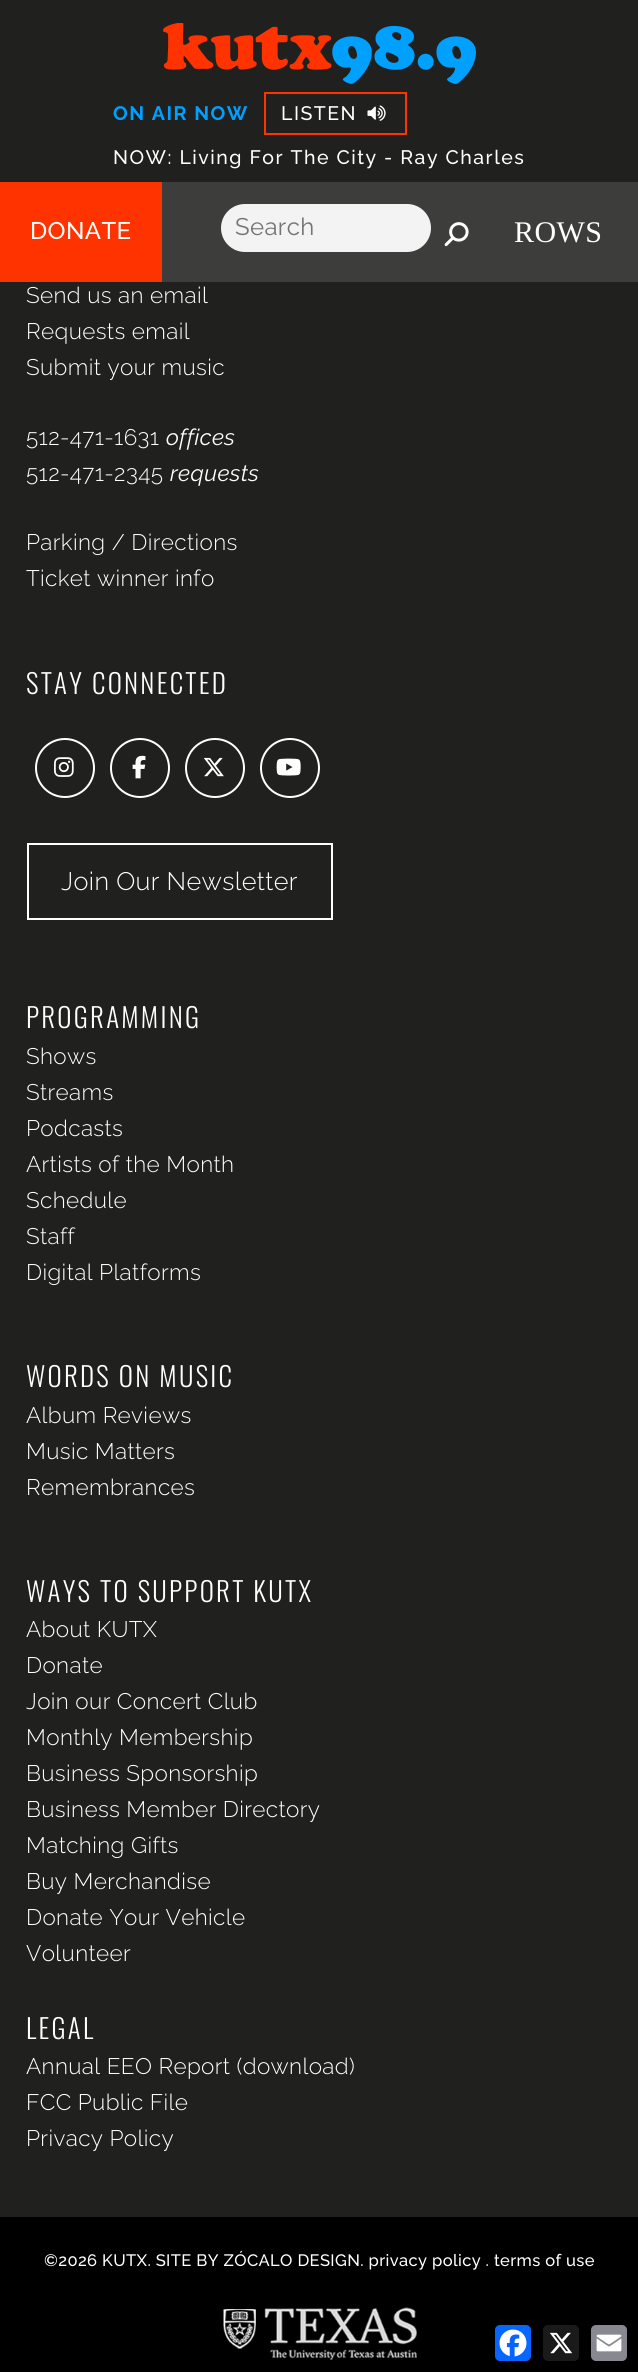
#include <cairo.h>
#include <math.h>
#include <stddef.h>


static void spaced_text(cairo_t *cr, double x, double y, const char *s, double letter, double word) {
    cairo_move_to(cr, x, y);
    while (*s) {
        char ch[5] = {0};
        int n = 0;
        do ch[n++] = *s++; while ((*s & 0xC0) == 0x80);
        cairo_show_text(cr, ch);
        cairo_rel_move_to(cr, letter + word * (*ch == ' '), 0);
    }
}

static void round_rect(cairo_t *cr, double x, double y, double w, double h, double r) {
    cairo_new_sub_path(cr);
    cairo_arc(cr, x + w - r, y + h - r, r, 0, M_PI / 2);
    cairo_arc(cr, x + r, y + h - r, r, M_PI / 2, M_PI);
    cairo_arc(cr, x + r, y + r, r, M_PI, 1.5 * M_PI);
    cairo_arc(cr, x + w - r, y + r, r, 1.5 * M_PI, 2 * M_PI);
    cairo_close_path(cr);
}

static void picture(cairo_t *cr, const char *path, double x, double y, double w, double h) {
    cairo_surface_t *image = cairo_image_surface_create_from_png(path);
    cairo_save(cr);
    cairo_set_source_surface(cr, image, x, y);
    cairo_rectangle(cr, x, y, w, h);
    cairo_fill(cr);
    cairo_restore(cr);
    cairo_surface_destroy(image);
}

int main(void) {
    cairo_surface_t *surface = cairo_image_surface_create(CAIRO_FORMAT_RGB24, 638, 2372);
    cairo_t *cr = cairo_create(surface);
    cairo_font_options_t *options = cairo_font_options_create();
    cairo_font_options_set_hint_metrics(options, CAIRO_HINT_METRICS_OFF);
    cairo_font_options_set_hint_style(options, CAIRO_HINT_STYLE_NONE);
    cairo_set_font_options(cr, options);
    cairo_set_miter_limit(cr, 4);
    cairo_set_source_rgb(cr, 0.125, 0.125, 0.122);
    cairo_paint(cr);
    picture(cr, "img1.png", 163, 23, 313, 61);
    cairo_select_font_face(cr, "Raleway", CAIRO_FONT_SLANT_NORMAL, CAIRO_FONT_WEIGHT_BOLD);
    cairo_set_font_size(cr, 19.5);
    cairo_set_source_rgb(cr, 0, 0.627, 1);
    spaced_text(cr, 113, 120, "ON AIR NOW", 1.5, 0);
    cairo_rectangle(cr, 265, 93, 141, 41);
    cairo_set_source_rgb(cr, 1, 0.2, 0);
    cairo_stroke(cr);
    cairo_select_font_face(cr, "Raleway Medium", CAIRO_FONT_SLANT_NORMAL, CAIRO_FONT_WEIGHT_NORMAL);
    cairo_set_source_rgb(cr, 1, 1, 1);
    spaced_text(cr, 281, 120, "LISTEN", 1.5, 0);
    picture(cr, "img2.png", 367, 105, 19, 16);
    spaced_text(cr, 113, 164, "NOW: Living For The City - Ray Charles", 1.5, 0);
    cairo_set_source_rgb(cr, 0.239, 0.239, 0.235);
    cairo_rectangle(cr, 162, 182, 476, 100);
    cairo_fill(cr);
    cairo_set_source_rgb(cr, 1, 0.2, 0);
    cairo_rectangle(cr, 0, 182, 162, 100);
    cairo_fill(cr);
    cairo_set_font_size(cr, 24);
    cairo_set_source_rgb(cr, 1, 1, 1);
    spaced_text(cr, 30, 239, "DONATE", 0.38, 0);
    cairo_set_source_rgb(cr, 0.953, 0.953, 0.953);
    round_rect(cr, 221, 204, 210, 48, 24);
    cairo_fill(cr);
    cairo_select_font_face(cr, "Raleway", CAIRO_FONT_SLANT_NORMAL, CAIRO_FONT_WEIGHT_NORMAL);
    cairo_set_source_rgb(cr, 0.459, 0.459, 0.459);
    spaced_text(cr, 235, 235, "Search", 0.38, 0);
    picture(cr, "img3.png", 444, 222, 25, 25);
    cairo_select_font_face(cr, "Liberation Serif", CAIRO_FONT_SLANT_NORMAL, CAIRO_FONT_WEIGHT_NORMAL);
    cairo_set_font_size(cr, 30);
    cairo_set_source_rgb(cr, 1, 1, 1);
    spaced_text(cr, 514, 242, "ROWS", 0.38, 0);
    cairo_select_font_face(cr, "Raleway Light", CAIRO_FONT_SLANT_NORMAL, CAIRO_FONT_WEIGHT_NORMAL);
    cairo_set_font_size(cr, 22.5);
    spaced_text(cr, 26, 303, "Send us an email", 0.38, 0);
    spaced_text(cr, 26, 339, "Requests email", 0.38, 0);
    spaced_text(cr, 26, 375, "Submit your music", 0.38, 0);
    spaced_text(cr, 26, 445, "512-471-1631", 0.38, 0);
    cairo_select_font_face(cr, "Raleway", CAIRO_FONT_SLANT_ITALIC, CAIRO_FONT_WEIGHT_NORMAL);
    spaced_text(cr, 166, 445, "offices", 0.38, 0);
    cairo_select_font_face(cr, "Raleway Light", CAIRO_FONT_SLANT_NORMAL, CAIRO_FONT_WEIGHT_NORMAL);
    spaced_text(cr, 26, 481, "512-471-2345", 0.38, 0);
    cairo_select_font_face(cr, "Raleway", CAIRO_FONT_SLANT_ITALIC, CAIRO_FONT_WEIGHT_NORMAL);
    spaced_text(cr, 170, 481, "requests", 0.38, 0);
    cairo_select_font_face(cr, "Raleway Light", CAIRO_FONT_SLANT_NORMAL, CAIRO_FONT_WEIGHT_NORMAL);
    spaced_text(cr, 26, 550, "Parking / Directions", 0.38, 0);
    spaced_text(cr, 26, 586, "Ticket winner info", 0.38, 0);
    cairo_select_font_face(cr, "Oswald Light", CAIRO_FONT_SLANT_NORMAL, CAIRO_FONT_WEIGHT_NORMAL);
    cairo_set_font_size(cr, 27);
    spaced_text(cr, 26, 694, "STAY CONNECTED", 2.25, 0);
    cairo_new_path(cr);
    cairo_arc(cr, 65, 768, 29, 0, 2 * M_PI);
    cairo_stroke(cr);
    picture(cr, "img4.png", 54, 757, 20, 20);
    cairo_arc(cr, 140, 768, 29, 0, 2 * M_PI);
    cairo_stroke(cr);
    picture(cr, "img5.png", 132, 755, 14, 24);
    cairo_arc(cr, 215, 768, 29, 0, 2 * M_PI);
    cairo_stroke(cr);
    picture(cr, "img6.png", 203, 757, 21, 20);
    cairo_arc(cr, 290, 768, 29, 0, 2 * M_PI);
    cairo_stroke(cr);
    picture(cr, "img7.png", 276, 758, 25, 18);
    cairo_rectangle(cr, 28, 844, 304, 75);
    cairo_stroke(cr);
    cairo_select_font_face(cr, "Raleway Light", CAIRO_FONT_SLANT_NORMAL, CAIRO_FONT_WEIGHT_NORMAL);
    cairo_set_font_size(cr, 25.25);
    spaced_text(cr, 61, 890, "Join Our Newsletter", 0.38, 0);
    cairo_select_font_face(cr, "Oswald Light", CAIRO_FONT_SLANT_NORMAL, CAIRO_FONT_WEIGHT_NORMAL);
    cairo_set_font_size(cr, 27);
    spaced_text(cr, 26, 1028, "PROGRAMMING", 2.25, 0);
    cairo_select_font_face(cr, "Raleway Light", CAIRO_FONT_SLANT_NORMAL, CAIRO_FONT_WEIGHT_NORMAL);
    cairo_set_font_size(cr, 22.5);
    spaced_text(cr, 26, 1064, "Shows", 0.38, 0);
    spaced_text(cr, 26, 1100, "Streams", 0.38, 0);
    spaced_text(cr, 26, 1136, "Podcasts", 0.38, 0);
    spaced_text(cr, 26, 1172, "Artists of the Month", 0.38, 0);
    spaced_text(cr, 26, 1208, "Schedule", 0.38, 0);
    spaced_text(cr, 26, 1244, "Staff", 0.38, 0);
    spaced_text(cr, 26, 1280, "Digital Platforms", 0.38, 0);
    cairo_select_font_face(cr, "Oswald Light", CAIRO_FONT_SLANT_NORMAL, CAIRO_FONT_WEIGHT_NORMAL);
    cairo_set_font_size(cr, 27);
    spaced_text(cr, 26, 1387, "WORDS ON MUSIC", 2.25, 0);
    cairo_select_font_face(cr, "Raleway Light", CAIRO_FONT_SLANT_NORMAL, CAIRO_FONT_WEIGHT_NORMAL);
    cairo_set_font_size(cr, 22.5);
    spaced_text(cr, 26, 1423, "Album Reviews", 0.38, 0);
    spaced_text(cr, 26, 1459, "Music Matters", 0.38, 0);
    spaced_text(cr, 26, 1495, "Remembrances", 0.38, 0);
    cairo_select_font_face(cr, "Oswald Light", CAIRO_FONT_SLANT_NORMAL, CAIRO_FONT_WEIGHT_NORMAL);
    cairo_set_font_size(cr, 27);
    spaced_text(cr, 26, 1602, "WAYS TO SUPPORT KUTX", 2.25, 0);
    cairo_select_font_face(cr, "Raleway Light", CAIRO_FONT_SLANT_NORMAL, CAIRO_FONT_WEIGHT_NORMAL);
    cairo_set_font_size(cr, 22.5);
    spaced_text(cr, 26, 1637, "About KUTX", 0.38, 0);
    spaced_text(cr, 26, 1673, "Donate", 0.38, 0);
    spaced_text(cr, 26, 1709, "Join our Concert Club", 0.38, 0);
    spaced_text(cr, 26, 1745, "Monthly Membership", 0.38, 0);
    spaced_text(cr, 26, 1781, "Business Sponsorship", 0.38, 0);
    spaced_text(cr, 26, 1817, "Business Member Directory", 0.38, 0);
    spaced_text(cr, 26, 1853, "Matching Gifts", 0.38, 0);
    spaced_text(cr, 26, 1889, "Buy Merchandise", 0.38, 0);
    spaced_text(cr, 26, 1925, "Donate Your Vehicle", 0.38, 0);
    spaced_text(cr, 26, 1961, "Volunteer", 0.38, 0);
    cairo_select_font_face(cr, "Oswald Light", CAIRO_FONT_SLANT_NORMAL, CAIRO_FONT_WEIGHT_NORMAL);
    cairo_set_font_size(cr, 27);
    spaced_text(cr, 26, 2039, "LEGAL", 2.25, 0);
    cairo_select_font_face(cr, "Raleway Light", CAIRO_FONT_SLANT_NORMAL, CAIRO_FONT_WEIGHT_NORMAL);
    cairo_set_font_size(cr, 22.5);
    spaced_text(cr, 26, 2074, "Annual EEO Report (download)", 0.38, 0);
    spaced_text(cr, 26, 2110, "FCC Public File", 0.38, 0);
    spaced_text(cr, 26, 2146, "Privacy Policy", 0.38, 0);
    cairo_set_source_rgb(cr, 0, 0, 0);
    cairo_rectangle(cr, 0, 2217, 638, 155);
    cairo_fill(cr);
    cairo_select_font_face(cr, "Raleway Medium", CAIRO_FONT_SLANT_NORMAL, CAIRO_FONT_WEIGHT_NORMAL);
    cairo_set_font_size(cr, 16.5);
    cairo_set_source_rgb(cr, 1, 1, 1);
    spaced_text(cr, 44, 2266, "©2026 KUTX. SITE BY ZÓCALO DESIGN. privacy policy . terms of use", 0.38, 0);
    picture(cr, "img8.png", 223, 2307, 194, 53);
    cairo_set_source_rgb(cr, 0.031, 0.4, 1);
    round_rect(cr, 495, 2325, 36, 36, 5);
    cairo_fill(cr);
    picture(cr, "img9.png", 499, 2329, 28, 28);
    cairo_set_source_rgb(cr, 0.102, 0.102, 0.102);
    round_rect(cr, 543, 2325, 36, 36, 5);
    cairo_fill(cr);
    picture(cr, "img10.png", 549, 2332, 24, 22);
    cairo_set_source_rgb(cr, 0.533, 0.537, 0.565);
    round_rect(cr, 591, 2325, 36, 36, 5);
    cairo_fill(cr);
    picture(cr, "img11.png", 596, 2334, 26, 18);
    cairo_surface_write_to_png(surface, "page.png");
    cairo_font_options_destroy(options);
    cairo_destroy(cr);
    cairo_surface_destroy(surface);
    return 0;
}
